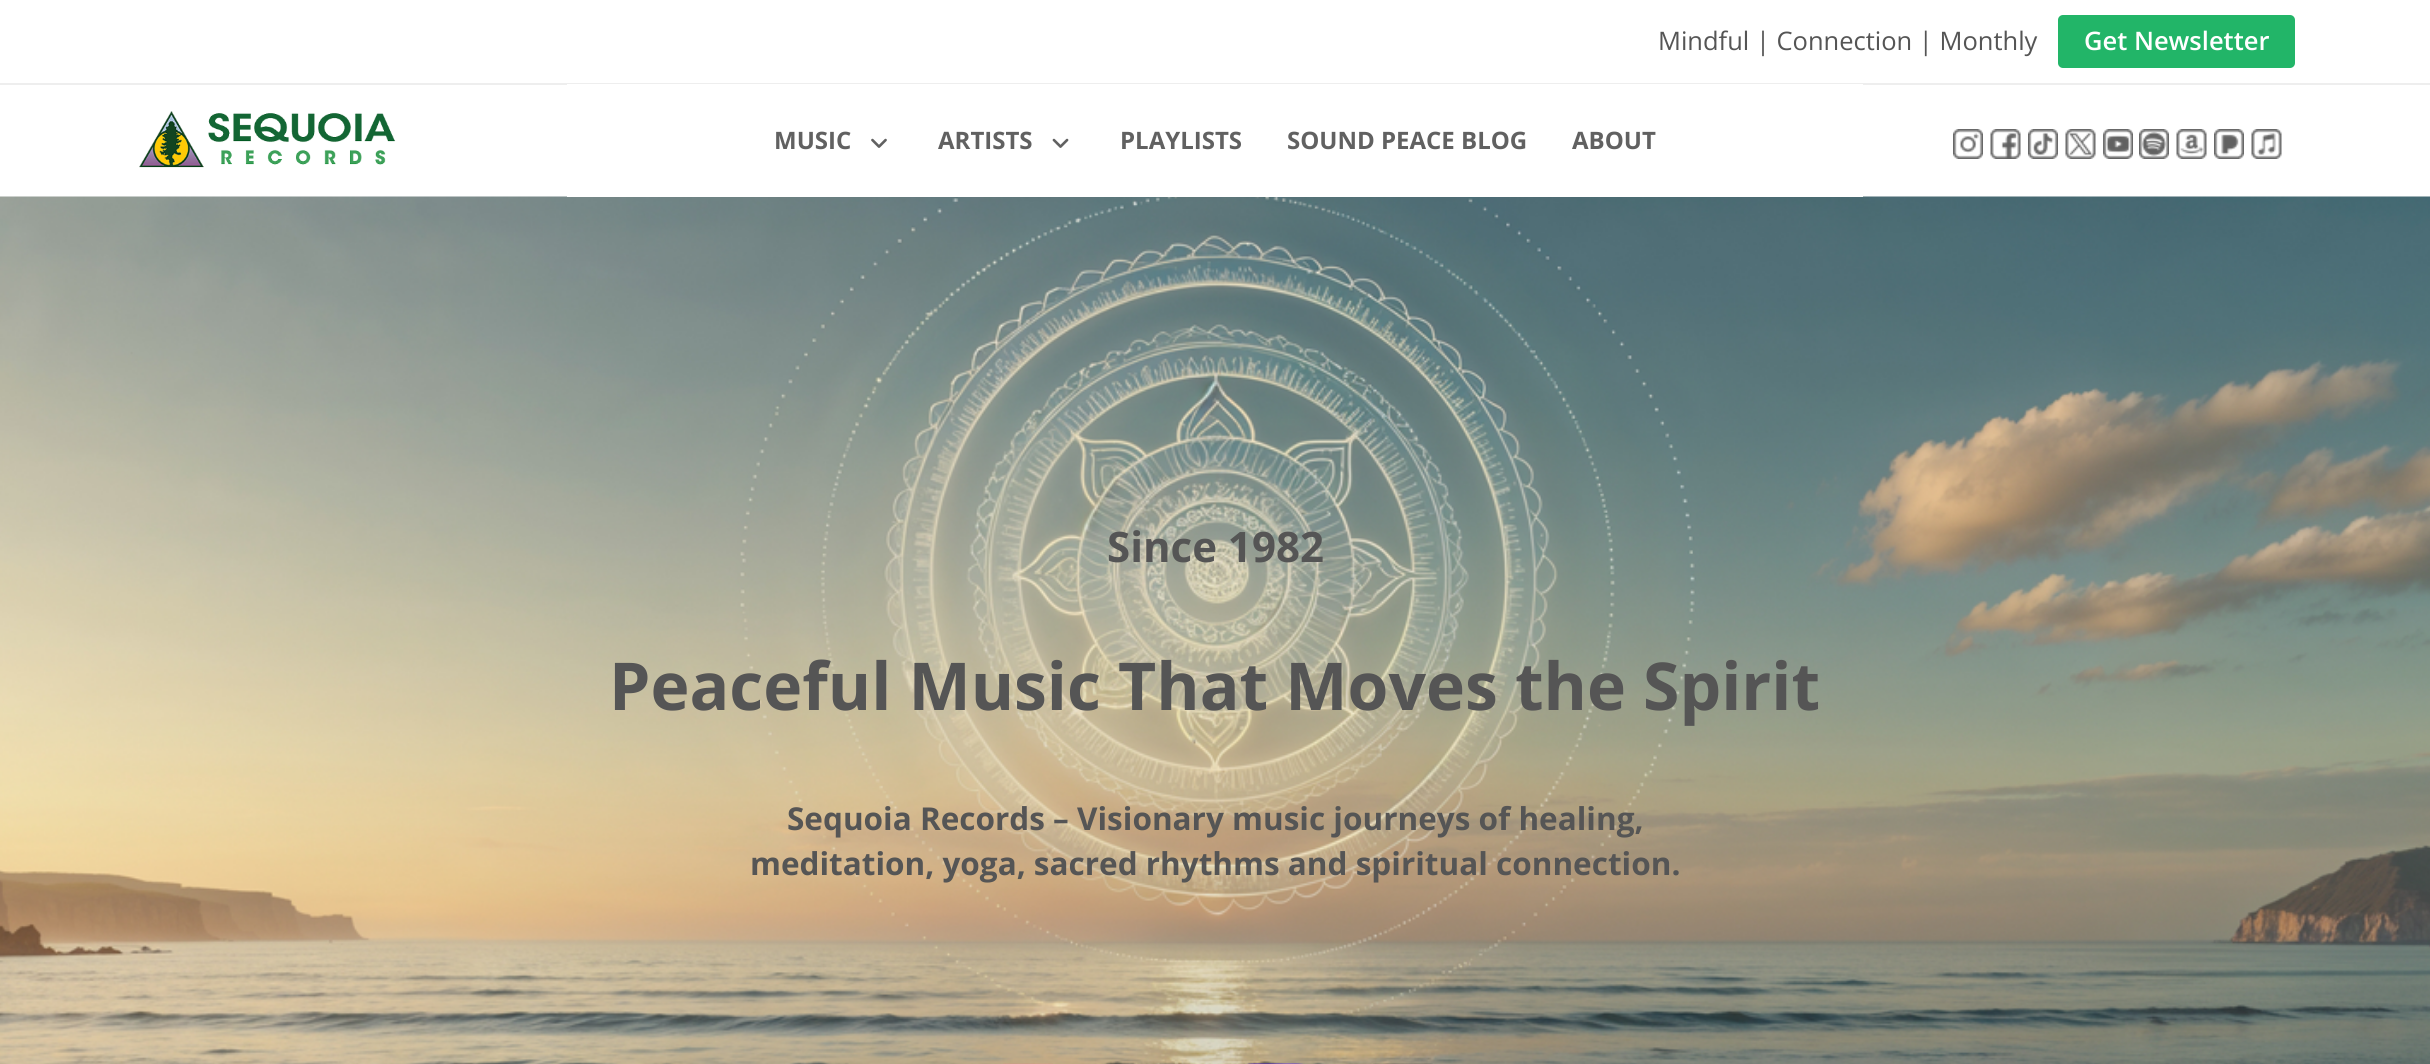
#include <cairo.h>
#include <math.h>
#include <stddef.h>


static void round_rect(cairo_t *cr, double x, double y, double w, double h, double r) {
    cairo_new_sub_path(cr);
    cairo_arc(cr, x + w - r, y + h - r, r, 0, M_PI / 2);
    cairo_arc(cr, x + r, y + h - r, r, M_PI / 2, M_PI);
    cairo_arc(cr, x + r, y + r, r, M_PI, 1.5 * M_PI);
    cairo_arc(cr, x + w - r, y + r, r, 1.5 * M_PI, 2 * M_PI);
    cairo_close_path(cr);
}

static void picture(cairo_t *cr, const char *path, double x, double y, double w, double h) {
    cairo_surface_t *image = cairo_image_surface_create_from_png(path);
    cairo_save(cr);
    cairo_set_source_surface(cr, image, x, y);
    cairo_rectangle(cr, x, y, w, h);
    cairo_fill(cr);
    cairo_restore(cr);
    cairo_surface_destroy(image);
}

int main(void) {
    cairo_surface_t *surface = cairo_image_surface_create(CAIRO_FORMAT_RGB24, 2430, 1064);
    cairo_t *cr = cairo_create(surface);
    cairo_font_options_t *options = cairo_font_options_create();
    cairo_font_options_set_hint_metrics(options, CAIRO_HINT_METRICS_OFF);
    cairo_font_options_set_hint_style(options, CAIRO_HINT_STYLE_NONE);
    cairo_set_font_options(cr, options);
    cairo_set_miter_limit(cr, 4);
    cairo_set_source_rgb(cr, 1, 1, 1);
    cairo_paint(cr);
    cairo_set_source_rgb(cr, 0.933, 0.933, 0.933);
    cairo_rectangle(cr, 0, 83, 2430, 2);
    cairo_fill(cr);
    cairo_select_font_face(cr, "Open Sans", CAIRO_FONT_SLANT_NORMAL, CAIRO_FONT_WEIGHT_NORMAL);
    cairo_set_font_size(cr, 25.5);
    cairo_set_source_rgb(cr, 0.333, 0.333, 0.333);
    cairo_move_to(cr, 1658, 50);
    cairo_show_text(cr, "Mindful | Connection | Monthly");
    cairo_set_source_rgb(cr, 0.133, 0.71, 0.408);
    round_rect(cr, 2058, 15, 237, 53, 5);
    cairo_fill(cr);
    cairo_select_font_face(cr, "Open Sans SemiBold", CAIRO_FONT_SLANT_NORMAL, CAIRO_FONT_WEIGHT_NORMAL);
    cairo_set_source_rgb(cr, 1, 1, 1);
    cairo_move_to(cr, 2084, 50);
    cairo_show_text(cr, "Get Newsletter");
    picture(cr, "img1.png", 139, 111, 257, 57);
    picture(cr, "img13.png", 0, 196, 2430, 868);
    cairo_rectangle(cr, 567, 84, 1296, 113);
    cairo_fill(cr);
    cairo_select_font_face(cr, "Open Sans", CAIRO_FONT_SLANT_NORMAL, CAIRO_FONT_WEIGHT_BOLD);
    cairo_set_font_size(cr, 24);
    cairo_set_source_rgb(cr, 0.38, 0.38, 0.38);
    cairo_move_to(cr, 774, 149);
    cairo_show_text(cr, "MUSIC");
    picture(cr, "img2.png", 871, 138, 16, 10);
    cairo_move_to(cr, 938, 149);
    cairo_show_text(cr, "ARTISTS");
    picture(cr, "img3.png", 1052, 138, 17, 10);
    cairo_move_to(cr, 1120, 149);
    cairo_show_text(cr, "PLAYLISTS");
    cairo_move_to(cr, 1287, 149);
    cairo_show_text(cr, "SOUND PEACE BLOG");
    cairo_move_to(cr, 1572, 149);
    cairo_show_text(cr, "ABOUT");
    picture(cr, "img4.png", 1953, 129, 30, 30);
    picture(cr, "img5.png", 1990, 129, 31, 30);
    picture(cr, "img6.png", 2028, 129, 30, 30);
    picture(cr, "img7.png", 2065, 129, 31, 30);
    picture(cr, "img8.png", 2103, 129, 30, 30);
    picture(cr, "img9.png", 2139, 129, 30, 30);
    picture(cr, "img10.png", 2176, 129, 31, 30);
    picture(cr, "img11.png", 2214, 129, 30, 30);
    picture(cr, "img12.png", 2251, 129, 31, 30);
    cairo_set_font_size(cr, 42);
    cairo_set_source_rgb(cr, 0.333, 0.333, 0.333);
    cairo_move_to(cr, 1107, 562);
    cairo_show_text(cr, "Since 1982");
    cairo_set_font_size(cr, 66);
    cairo_move_to(cr, 609, 710);
    cairo_show_text(cr, "Peaceful Music That Moves the Spirit");
    cairo_set_font_size(cr, 31.5);
    cairo_move_to(cr, 787, 830);
    cairo_show_text(cr, "Sequoia Records – Visionary music journeys of healing,");
    cairo_move_to(cr, 750, 875);
    cairo_show_text(cr, "meditation, yoga, sacred rhythms and spiritual connection.");
    picture(cr, "img14.png", 1003, 1063, 50, 1);
    picture(cr, "img15.png", 1247, 1063, 56, 1);
    picture(cr, "img16.png", 1373, 1063, 60, 1);
    cairo_surface_write_to_png(surface, "page.png");
    cairo_font_options_destroy(options);
    cairo_destroy(cr);
    cairo_surface_destroy(surface);
    return 0;
}
